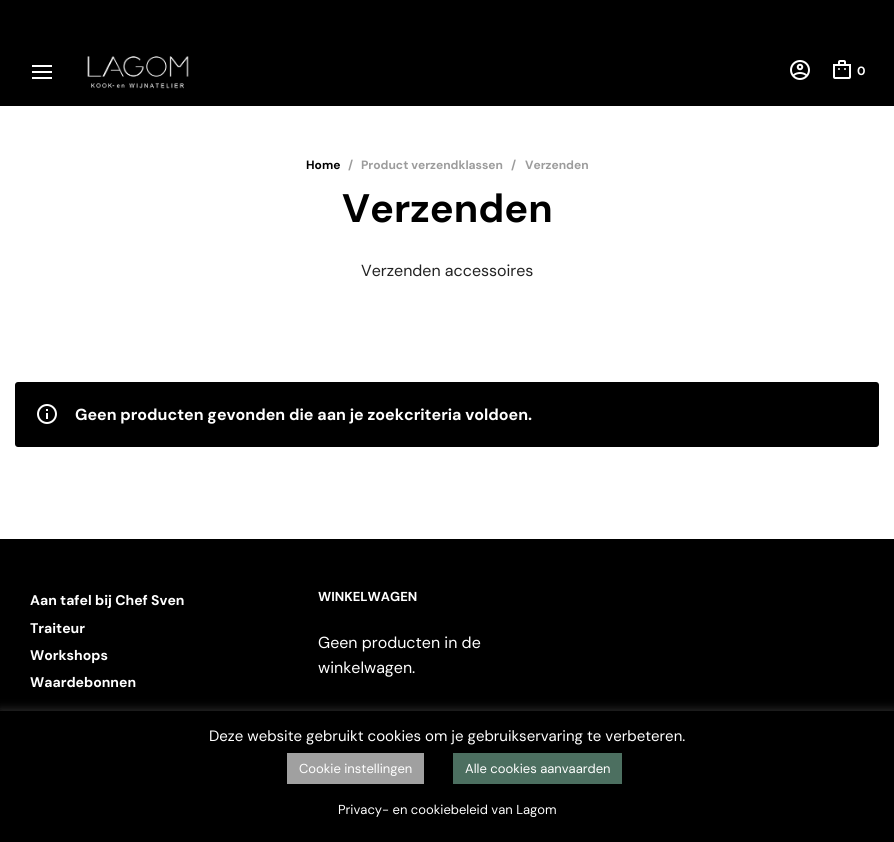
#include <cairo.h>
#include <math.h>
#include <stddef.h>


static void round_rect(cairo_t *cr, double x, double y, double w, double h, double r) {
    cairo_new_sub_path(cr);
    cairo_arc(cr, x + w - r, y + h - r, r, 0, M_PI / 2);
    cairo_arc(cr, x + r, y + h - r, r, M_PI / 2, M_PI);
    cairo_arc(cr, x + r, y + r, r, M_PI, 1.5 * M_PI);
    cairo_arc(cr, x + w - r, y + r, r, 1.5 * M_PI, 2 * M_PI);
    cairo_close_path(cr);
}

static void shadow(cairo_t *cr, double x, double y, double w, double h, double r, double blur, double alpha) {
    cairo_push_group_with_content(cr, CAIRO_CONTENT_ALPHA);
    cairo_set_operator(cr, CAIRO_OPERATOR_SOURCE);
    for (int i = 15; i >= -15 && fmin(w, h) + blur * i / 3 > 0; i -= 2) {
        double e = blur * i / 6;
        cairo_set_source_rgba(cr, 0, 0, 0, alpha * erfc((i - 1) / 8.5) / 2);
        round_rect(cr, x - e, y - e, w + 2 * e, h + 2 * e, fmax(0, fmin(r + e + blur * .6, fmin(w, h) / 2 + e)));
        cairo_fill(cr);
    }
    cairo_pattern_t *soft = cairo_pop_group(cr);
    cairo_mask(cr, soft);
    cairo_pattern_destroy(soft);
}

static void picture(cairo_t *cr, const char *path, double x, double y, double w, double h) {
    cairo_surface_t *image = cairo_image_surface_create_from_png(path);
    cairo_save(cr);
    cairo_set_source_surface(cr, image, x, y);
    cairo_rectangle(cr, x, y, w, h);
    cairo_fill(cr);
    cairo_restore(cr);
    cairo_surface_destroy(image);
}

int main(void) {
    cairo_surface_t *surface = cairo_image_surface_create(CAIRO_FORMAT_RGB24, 894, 842);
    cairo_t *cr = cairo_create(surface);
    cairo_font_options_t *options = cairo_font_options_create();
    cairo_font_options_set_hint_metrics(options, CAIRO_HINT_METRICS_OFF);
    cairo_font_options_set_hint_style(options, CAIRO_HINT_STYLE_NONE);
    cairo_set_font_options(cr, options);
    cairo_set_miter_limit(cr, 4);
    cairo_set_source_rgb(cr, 1, 1, 1);
    cairo_paint(cr);
    cairo_set_source_rgb(cr, 0, 0, 0);
    cairo_rectangle(cr, 0, 0, 894, 106);
    cairo_fill(cr);
    picture(cr, "img1.png", 32, 65, 20, 14);
    picture(cr, "img2.png", 87, 56, 102, 33);
    picture(cr, "img3.png", 790, 60, 20, 20);
    picture(cr, "img4.png", 833, 60, 18, 19);
    cairo_select_font_face(cr, "DM Sans", CAIRO_FONT_SLANT_NORMAL, CAIRO_FONT_WEIGHT_BOLD);
    cairo_set_font_size(cr, 12);
    cairo_set_source_rgb(cr, 1, 1, 1);
    cairo_move_to(cr, 857, 75);
    cairo_show_text(cr, "0");
    cairo_set_source_rgb(cr, 0, 0, 0);
    cairo_move_to(cr, 306, 169);
    cairo_show_text(cr, "Home");
    cairo_set_source_rgb(cr, 0.612, 0.612, 0.612);
    cairo_move_to(cr, 348, 169);
    cairo_show_text(cr, "/");
    cairo_move_to(cr, 361, 169);
    cairo_show_text(cr, "Product verzendklassen");
    cairo_move_to(cr, 511, 169);
    cairo_show_text(cr, "/");
    cairo_move_to(cr, 525, 169);
    cairo_show_text(cr, "Verzenden");
    cairo_set_font_size(cr, 39.75);
    cairo_set_source_rgb(cr, 0, 0, 0);
    cairo_move_to(cr, 342, 222);
    cairo_show_text(cr, "Verzenden");
    cairo_select_font_face(cr, "DM Sans", CAIRO_FONT_SLANT_NORMAL, CAIRO_FONT_WEIGHT_NORMAL);
    cairo_set_font_size(cr, 16);
    cairo_set_source_rgb(cr, 0.133, 0.133, 0.133);
    cairo_move_to(cr, 361, 276);
    cairo_show_text(cr, "Verzenden accessoires");
    cairo_set_source_rgb(cr, 0, 0, 0);
    round_rect(cr, 15, 382, 864, 65, 3);
    cairo_fill(cr);
    picture(cr, "img5.png", 37, 404, 20, 20);
    cairo_select_font_face(cr, "DM Sans", CAIRO_FONT_SLANT_NORMAL, CAIRO_FONT_WEIGHT_BOLD);
    cairo_set_source_rgb(cr, 1, 1, 1);
    cairo_move_to(cr, 75, 420);
    cairo_show_text(cr, "Geen producten gevonden die aan je zoekcriteria voldoen.");
    cairo_set_source_rgb(cr, 0, 0, 0);
    cairo_rectangle(cr, 0, 539, 894, 172);
    cairo_fill(cr);
    cairo_set_font_size(cr, 14);
    cairo_set_source_rgb(cr, 1, 1, 1);
    cairo_move_to(cr, 30, 605);
    cairo_show_text(cr, "Aan tafel bij Chef Sven");
    cairo_move_to(cr, 30, 633);
    cairo_show_text(cr, "Traiteur");
    cairo_move_to(cr, 30, 660);
    cairo_show_text(cr, "Workshops");
    cairo_move_to(cr, 30, 687);
    cairo_show_text(cr, "Waardebonnen");
    cairo_set_font_size(cr, 13);
    cairo_move_to(cr, 318, 601);
    cairo_show_text(cr, "WINKELWAGEN");
    cairo_select_font_face(cr, "DM Sans", CAIRO_FONT_SLANT_NORMAL, CAIRO_FONT_WEIGHT_NORMAL);
    cairo_set_font_size(cr, 16);
    cairo_move_to(cr, 318, 648);
    cairo_show_text(cr, "Geen producten in de");
    cairo_move_to(cr, 318, 673);
    cairo_show_text(cr, "winkelwagen.");
    cairo_set_source_rgb(cr, 0.675, 0.671, 0.671);
    shadow(cr, 0, 710, 894, 131, 0, 5, 0.3);
    cairo_set_source_rgb(cr, 0, 0, 0);
    cairo_rectangle(cr, 0, 711, 894, 131);
    cairo_fill(cr);
    cairo_set_font_size(cr, 15);
    cairo_set_source_rgb(cr, 1, 1, 1);
    cairo_move_to(cr, 209, 741);
    cairo_show_text(cr, "Deze website gebruikt cookies om je gebruikservaring te verbeteren.");
    cairo_set_source_rgb(cr, 0.627, 0.627, 0.627);
    cairo_rectangle(cr, 287, 753, 137, 31);
    cairo_fill(cr);
    cairo_set_font_size(cr, 13);
    cairo_set_source_rgb(cr, 1, 1, 1);
    cairo_move_to(cr, 299, 773);
    cairo_show_text(cr, "Cookie instellingen");
    cairo_set_source_rgb(cr, 0.298, 0.435, 0.376);
    cairo_rectangle(cr, 453, 753, 169, 31);
    cairo_fill(cr);
    cairo_set_source_rgb(cr, 1, 1, 1);
    cairo_move_to(cr, 465, 773);
    cairo_show_text(cr, "Alle cookies aanvaarden");
    cairo_move_to(cr, 338, 814);
    cairo_show_text(cr, "Privacy- en cookiebeleid van Lagom");
    cairo_surface_write_to_png(surface, "page.png");
    cairo_font_options_destroy(options);
    cairo_destroy(cr);
    cairo_surface_destroy(surface);
    return 0;
}
